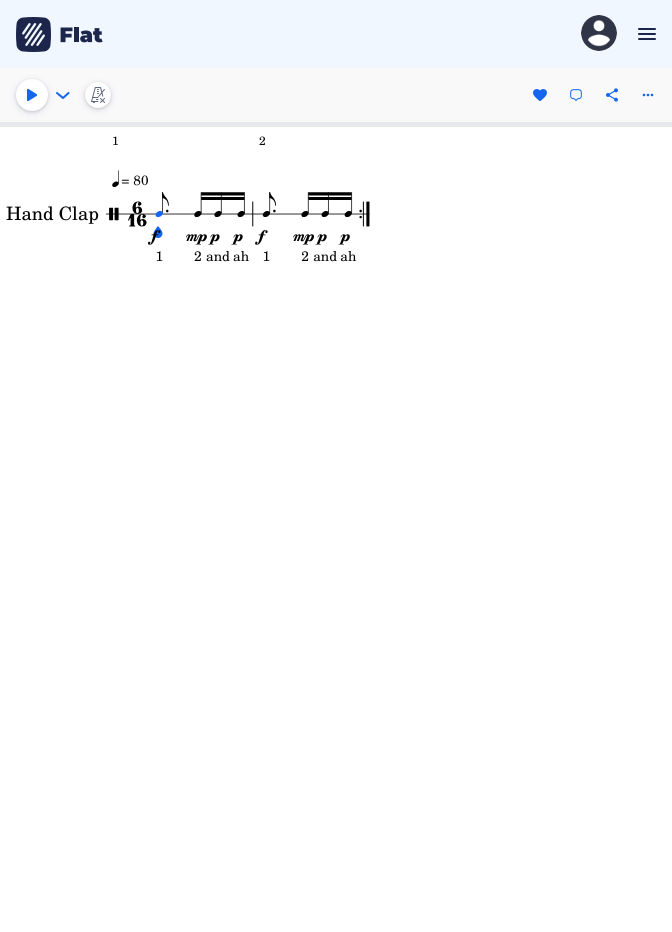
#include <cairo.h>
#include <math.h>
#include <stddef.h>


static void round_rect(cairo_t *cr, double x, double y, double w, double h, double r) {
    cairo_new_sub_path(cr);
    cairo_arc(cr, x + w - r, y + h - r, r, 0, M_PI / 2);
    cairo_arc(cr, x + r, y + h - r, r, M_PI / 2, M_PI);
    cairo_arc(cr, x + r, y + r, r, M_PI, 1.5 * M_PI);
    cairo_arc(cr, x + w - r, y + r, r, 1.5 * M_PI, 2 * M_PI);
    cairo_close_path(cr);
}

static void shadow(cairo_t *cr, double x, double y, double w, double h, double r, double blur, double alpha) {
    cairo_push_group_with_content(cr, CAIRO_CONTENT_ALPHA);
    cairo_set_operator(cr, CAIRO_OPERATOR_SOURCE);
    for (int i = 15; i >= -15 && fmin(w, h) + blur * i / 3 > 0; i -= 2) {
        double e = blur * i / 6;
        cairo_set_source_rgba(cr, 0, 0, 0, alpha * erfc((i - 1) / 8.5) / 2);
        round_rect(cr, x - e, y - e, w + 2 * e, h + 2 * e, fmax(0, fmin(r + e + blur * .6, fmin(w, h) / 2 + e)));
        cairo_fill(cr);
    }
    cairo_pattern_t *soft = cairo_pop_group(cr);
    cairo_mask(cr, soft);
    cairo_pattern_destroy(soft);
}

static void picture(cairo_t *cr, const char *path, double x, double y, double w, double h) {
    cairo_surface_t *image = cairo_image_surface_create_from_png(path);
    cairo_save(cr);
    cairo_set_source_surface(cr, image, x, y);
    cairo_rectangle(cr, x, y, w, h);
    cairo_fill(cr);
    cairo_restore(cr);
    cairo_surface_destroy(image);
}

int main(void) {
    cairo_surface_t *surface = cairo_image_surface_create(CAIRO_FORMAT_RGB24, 672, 932);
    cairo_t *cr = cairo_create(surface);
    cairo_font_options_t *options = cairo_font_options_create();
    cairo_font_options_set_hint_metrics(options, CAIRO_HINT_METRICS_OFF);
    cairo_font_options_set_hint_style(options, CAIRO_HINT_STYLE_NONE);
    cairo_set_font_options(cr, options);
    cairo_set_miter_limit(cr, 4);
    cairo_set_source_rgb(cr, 1, 1, 1);
    cairo_paint(cr);
    cairo_set_source_rgb(cr, 0.945, 0.965, 0.996);
    cairo_rectangle(cr, 0, 0, 672, 68);
    cairo_fill(cr);
    picture(cr, "img1.png", 16, 17, 87, 35);
    cairo_set_source_rgb(cr, 1, 1, 1);
    cairo_arc(cr, 599, 33, 18, 0, 2 * M_PI);
    cairo_fill(cr);
    picture(cr, "img2.png", 581, 15, 36, 36);
    cairo_set_source_rgb(cr, 0.11, 0.149, 0.29);
    round_rect(cr, 638, 28, 18, 2, 1);
    cairo_fill(cr);
    round_rect(cr, 638, 33, 18, 2, 1);
    cairo_fill(cr);
    round_rect(cr, 638, 38, 18, 2, 1);
    cairo_fill(cr);
    cairo_set_source_rgb(cr, 0.976, 0.976, 0.98);
    cairo_rectangle(cr, 0, 68, 672, 54);
    cairo_fill(cr);
    cairo_set_source_rgb(cr, 0.157, 0.188, 0.31);
    shadow(cr, 16, 80, 32, 32, 16, 1.5, 0.2);
    shadow(cr, 16, 81, 32, 32, 16, 4, 0.1);
    cairo_set_source_rgb(cr, 1, 1, 1);
    cairo_arc(cr, 32, 95, 16, 0, 2 * M_PI);
    cairo_fill(cr);
    picture(cr, "img3.png", 27, 88, 11, 14);
    cairo_new_path(cr);
    cairo_move_to(cr, 57, 93);
    cairo_line_to(cr, 63, 98);
    cairo_line_to(cr, 68.5, 93);
    cairo_set_source_rgb(cr, 0.082, 0.396, 0.937);
    cairo_set_line_cap(cr, CAIRO_LINE_CAP_ROUND);
    cairo_set_line_join(cr, CAIRO_LINE_JOIN_ROUND);
    cairo_stroke(cr);
    cairo_set_source_rgb(cr, 0.157, 0.188, 0.31);
    shadow(cr, 85, 83, 26, 26, 13, 1.5, 0.2);
    shadow(cr, 85, 84, 26, 26, 13, 4, 0.1);
    cairo_set_source_rgb(cr, 1, 1, 1);
    cairo_arc(cr, 98, 95, 13, 0, 2 * M_PI);
    cairo_fill(cr);
    picture(cr, "img4.png", 91, 87, 14, 16);
    picture(cr, "img5.png", 533, 89, 14, 12);
    picture(cr, "img6.png", 570, 89, 12, 12);
    picture(cr, "img7.png", 606, 88, 12, 14);
    picture(cr, "img8.png", 642, 93, 12, 4);
    cairo_set_source_rgb(cr, 0.906, 0.91, 0.925);
    cairo_rectangle(cr, 0, 122, 672, 5);
    cairo_fill(cr);
    cairo_select_font_face(cr, "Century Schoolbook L", CAIRO_FONT_SLANT_NORMAL, CAIRO_FONT_WEIGHT_NORMAL);
    cairo_set_font_size(cr, 12);
    cairo_set_source_rgb(cr, 0, 0, 0);
    cairo_move_to(cr, 112, 145);
    cairo_show_text(cr, "1");
    cairo_move_to(cr, 259, 145);
    cairo_show_text(cr, "2");
    picture(cr, "img9.png", 106, 170, 264, 92);
    cairo_set_font_size(cr, 18.5);
    cairo_move_to(cr, 6, 220);
    cairo_show_text(cr, "Hand Clap");
    cairo_surface_write_to_png(surface, "page.png");
    cairo_font_options_destroy(options);
    cairo_destroy(cr);
    cairo_surface_destroy(surface);
    return 0;
}
